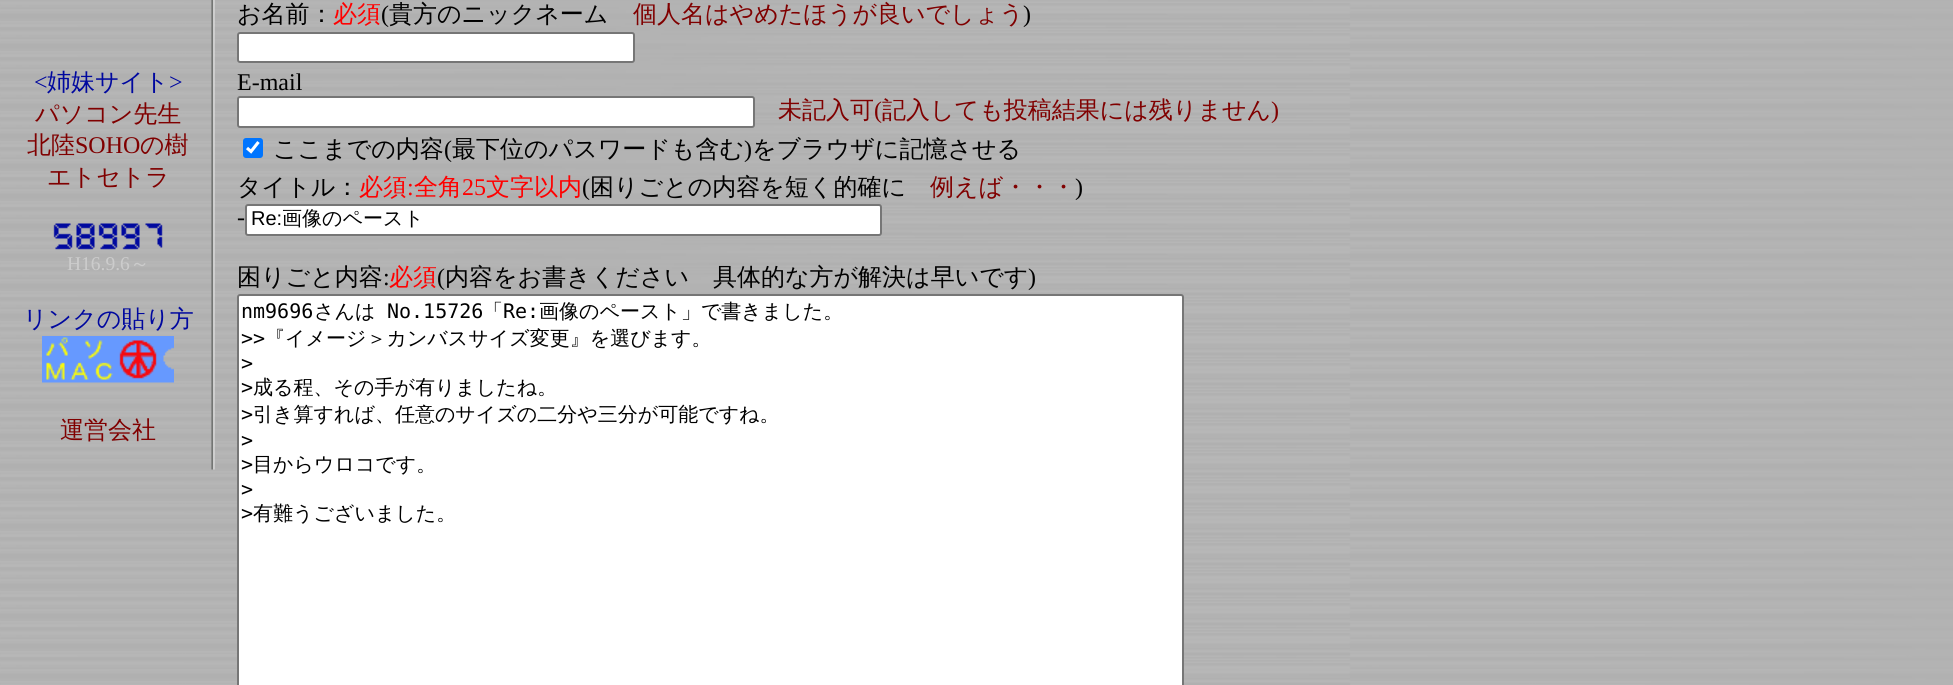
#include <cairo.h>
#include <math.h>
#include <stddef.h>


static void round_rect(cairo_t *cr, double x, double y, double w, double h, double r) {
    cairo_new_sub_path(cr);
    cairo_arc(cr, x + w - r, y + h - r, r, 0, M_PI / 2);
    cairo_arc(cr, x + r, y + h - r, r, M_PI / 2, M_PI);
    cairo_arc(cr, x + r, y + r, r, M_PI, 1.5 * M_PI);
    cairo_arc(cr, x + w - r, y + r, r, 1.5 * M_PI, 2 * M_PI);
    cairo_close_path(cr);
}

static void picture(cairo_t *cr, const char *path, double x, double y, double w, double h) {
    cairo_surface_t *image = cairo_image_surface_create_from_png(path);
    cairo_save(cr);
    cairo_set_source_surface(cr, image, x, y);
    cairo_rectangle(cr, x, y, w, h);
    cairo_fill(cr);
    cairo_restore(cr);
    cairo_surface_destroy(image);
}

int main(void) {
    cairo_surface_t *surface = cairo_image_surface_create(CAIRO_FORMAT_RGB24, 1953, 685);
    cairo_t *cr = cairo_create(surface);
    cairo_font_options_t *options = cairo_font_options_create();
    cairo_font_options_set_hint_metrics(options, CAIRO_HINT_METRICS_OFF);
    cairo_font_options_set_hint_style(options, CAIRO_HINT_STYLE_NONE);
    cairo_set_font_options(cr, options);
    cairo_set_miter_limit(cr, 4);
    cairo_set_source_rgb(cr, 1, 1, 1);
    cairo_paint(cr);
    picture(cr, "img1.png", 0, 0, 1953, 685);
    cairo_select_font_face(cr, "Liberation Serif", CAIRO_FONT_SLANT_NORMAL, CAIRO_FONT_WEIGHT_NORMAL);
    cairo_set_font_size(cr, 24);
    cairo_set_source_rgb(cr, 0, 0.035, 0.624);
    cairo_move_to(cr, 34, 90);
    cairo_show_text(cr, "<");
    cairo_select_font_face(cr, "WenQuanYi Zen Hei Medium", CAIRO_FONT_SLANT_NORMAL, CAIRO_FONT_WEIGHT_NORMAL);
    cairo_move_to(cr, 47, 90);
    cairo_show_text(cr, "姉妹サイト");
    cairo_select_font_face(cr, "Liberation Serif", CAIRO_FONT_SLANT_NORMAL, CAIRO_FONT_WEIGHT_NORMAL);
    cairo_move_to(cr, 169, 90);
    cairo_show_text(cr, ">");
    cairo_select_font_face(cr, "WenQuanYi Zen Hei Medium", CAIRO_FONT_SLANT_NORMAL, CAIRO_FONT_WEIGHT_NORMAL);
    cairo_set_source_rgb(cr, 0.502, 0, 0);
    cairo_move_to(cr, 35, 122);
    cairo_show_text(cr, "パソコン先生");
    cairo_move_to(cr, 27, 153);
    cairo_show_text(cr, "北陸");
    cairo_select_font_face(cr, "Liberation Serif", CAIRO_FONT_SLANT_NORMAL, CAIRO_FONT_WEIGHT_NORMAL);
    cairo_move_to(cr, 75, 153);
    cairo_show_text(cr, "SOHO");
    cairo_select_font_face(cr, "WenQuanYi Zen Hei Medium", CAIRO_FONT_SLANT_NORMAL, CAIRO_FONT_WEIGHT_NORMAL);
    cairo_move_to(cr, 140, 153);
    cairo_show_text(cr, "の樹");
    cairo_move_to(cr, 47, 185);
    cairo_show_text(cr, "エトセトラ");
    picture(cr, "img2.png", 53, 223, 110, 27);
    cairo_select_font_face(cr, "Liberation Serif", CAIRO_FONT_SLANT_NORMAL, CAIRO_FONT_WEIGHT_NORMAL);
    cairo_set_font_size(cr, 19.5);
    cairo_set_source_rgb(cr, 0.8, 0.8, 0.8);
    cairo_move_to(cr, 67, 270);
    cairo_show_text(cr, "H16.9.6");
    cairo_select_font_face(cr, "WenQuanYi Zen Hei Medium", CAIRO_FONT_SLANT_NORMAL, CAIRO_FONT_WEIGHT_NORMAL);
    cairo_move_to(cr, 130, 270);
    cairo_show_text(cr, "～");
    cairo_set_font_size(cr, 24);
    cairo_set_source_rgb(cr, 0, 0.035, 0.624);
    cairo_move_to(cr, 23, 327);
    cairo_show_text(cr, "リンクの貼り方");
    picture(cr, "img3.png", 42, 336, 132, 47);
    cairo_set_source_rgb(cr, 0.502, 0, 0);
    cairo_move_to(cr, 60, 438);
    cairo_show_text(cr, "運営会社");
    picture(cr, "img4.png", 211, 0, 4, 470);
    cairo_set_source_rgb(cr, 0, 0, 0);
    cairo_move_to(cr, 237, 22);
    cairo_show_text(cr, "お名前：");
    cairo_set_source_rgb(cr, 1, 0, 0);
    cairo_move_to(cr, 333, 22);
    cairo_show_text(cr, "必須");
    cairo_select_font_face(cr, "Liberation Serif", CAIRO_FONT_SLANT_NORMAL, CAIRO_FONT_WEIGHT_NORMAL);
    cairo_set_source_rgb(cr, 0, 0, 0);
    cairo_move_to(cr, 381, 22);
    cairo_show_text(cr, "(");
    cairo_select_font_face(cr, "WenQuanYi Zen Hei Medium", CAIRO_FONT_SLANT_NORMAL, CAIRO_FONT_WEIGHT_NORMAL);
    cairo_move_to(cr, 389, 22);
    cairo_show_text(cr, "貴方のニックネーム");
    cairo_set_source_rgb(cr, 0.502, 0, 0);
    cairo_move_to(cr, 633, 22);
    cairo_show_text(cr, "個人名はやめたほうが良いでしょう");
    cairo_select_font_face(cr, "Liberation Serif", CAIRO_FONT_SLANT_NORMAL, CAIRO_FONT_WEIGHT_NORMAL);
    cairo_set_source_rgb(cr, 0, 0, 0);
    cairo_move_to(cr, 1023, 22);
    cairo_show_text(cr, ")");
    cairo_set_source_rgb(cr, 1, 1, 1);
    round_rect(cr, 238, 33, 396, 29, 2);
    cairo_fill_preserve(cr);
    cairo_set_source_rgb(cr, 0.463, 0.463, 0.463);
    cairo_stroke(cr);
    cairo_set_source_rgb(cr, 0, 0, 0);
    cairo_move_to(cr, 237, 90);
    cairo_show_text(cr, "E-mail");
    cairo_set_source_rgb(cr, 1, 1, 1);
    round_rect(cr, 238, 97, 516, 30, 2);
    cairo_fill_preserve(cr);
    cairo_set_source_rgb(cr, 0.463, 0.463, 0.463);
    cairo_stroke(cr);
    cairo_select_font_face(cr, "WenQuanYi Zen Hei Medium", CAIRO_FONT_SLANT_NORMAL, CAIRO_FONT_WEIGHT_NORMAL);
    cairo_set_source_rgb(cr, 0.502, 0, 0);
    cairo_move_to(cr, 778, 118);
    cairo_show_text(cr, "未記入可");
    cairo_select_font_face(cr, "Liberation Serif", CAIRO_FONT_SLANT_NORMAL, CAIRO_FONT_WEIGHT_NORMAL);
    cairo_move_to(cr, 874, 118);
    cairo_show_text(cr, "(");
    cairo_select_font_face(cr, "WenQuanYi Zen Hei Medium", CAIRO_FONT_SLANT_NORMAL, CAIRO_FONT_WEIGHT_NORMAL);
    cairo_move_to(cr, 882, 118);
    cairo_show_text(cr, "記入しても投稿結果には残りません");
    cairo_select_font_face(cr, "Liberation Serif", CAIRO_FONT_SLANT_NORMAL, CAIRO_FONT_WEIGHT_NORMAL);
    cairo_move_to(cr, 1271, 118);
    cairo_show_text(cr, ")");
    cairo_set_source_rgb(cr, 0, 0.459, 1);
    round_rect(cr, 243, 138, 20, 20, 3);
    cairo_fill(cr);
    cairo_new_path(cr);
    cairo_move_to(cr, 247, 148);
    cairo_line_to(cr, 251, 151.5);
    cairo_line_to(cr, 258.5, 142);
    cairo_set_source_rgb(cr, 1, 1, 1);
    cairo_set_line_width(cr, 3.1);
    cairo_stroke(cr);
    cairo_select_font_face(cr, "WenQuanYi Zen Hei Medium", CAIRO_FONT_SLANT_NORMAL, CAIRO_FONT_WEIGHT_NORMAL);
    cairo_set_source_rgb(cr, 0, 0, 0);
    cairo_move_to(cr, 273, 157);
    cairo_show_text(cr, "ここまでの内容");
    cairo_select_font_face(cr, "Liberation Serif", CAIRO_FONT_SLANT_NORMAL, CAIRO_FONT_WEIGHT_NORMAL);
    cairo_move_to(cr, 444, 157);
    cairo_show_text(cr, "(");
    cairo_select_font_face(cr, "WenQuanYi Zen Hei Medium", CAIRO_FONT_SLANT_NORMAL, CAIRO_FONT_WEIGHT_NORMAL);
    cairo_move_to(cr, 452, 157);
    cairo_show_text(cr, "最下位のパスワードも含む");
    cairo_select_font_face(cr, "Liberation Serif", CAIRO_FONT_SLANT_NORMAL, CAIRO_FONT_WEIGHT_NORMAL);
    cairo_move_to(cr, 744, 157);
    cairo_show_text(cr, ")");
    cairo_select_font_face(cr, "WenQuanYi Zen Hei Medium", CAIRO_FONT_SLANT_NORMAL, CAIRO_FONT_WEIGHT_NORMAL);
    cairo_move_to(cr, 752, 157);
    cairo_show_text(cr, "をブラウザに記憶させる");
    cairo_move_to(cr, 237, 195);
    cairo_show_text(cr, "タイトル：");
    cairo_set_source_rgb(cr, 1, 0, 0);
    cairo_move_to(cr, 359, 195);
    cairo_show_text(cr, "必須");
    cairo_select_font_face(cr, "Liberation Serif", CAIRO_FONT_SLANT_NORMAL, CAIRO_FONT_WEIGHT_NORMAL);
    cairo_move_to(cr, 407, 195);
    cairo_show_text(cr, ":");
    cairo_select_font_face(cr, "WenQuanYi Zen Hei Medium", CAIRO_FONT_SLANT_NORMAL, CAIRO_FONT_WEIGHT_NORMAL);
    cairo_move_to(cr, 414, 195);
    cairo_show_text(cr, "全角");
    cairo_select_font_face(cr, "Liberation Serif", CAIRO_FONT_SLANT_NORMAL, CAIRO_FONT_WEIGHT_NORMAL);
    cairo_move_to(cr, 462, 195);
    cairo_show_text(cr, "25");
    cairo_select_font_face(cr, "WenQuanYi Zen Hei Medium", CAIRO_FONT_SLANT_NORMAL, CAIRO_FONT_WEIGHT_NORMAL);
    cairo_move_to(cr, 486, 195);
    cairo_show_text(cr, "文字以内");
    cairo_select_font_face(cr, "Liberation Serif", CAIRO_FONT_SLANT_NORMAL, CAIRO_FONT_WEIGHT_NORMAL);
    cairo_set_source_rgb(cr, 0, 0, 0);
    cairo_move_to(cr, 582, 195);
    cairo_show_text(cr, "(");
    cairo_select_font_face(cr, "WenQuanYi Zen Hei Medium", CAIRO_FONT_SLANT_NORMAL, CAIRO_FONT_WEIGHT_NORMAL);
    cairo_move_to(cr, 590, 195);
    cairo_show_text(cr, "困りごとの内容を短く的確に");
    cairo_set_source_rgb(cr, 0.502, 0, 0);
    cairo_move_to(cr, 930, 195);
    cairo_show_text(cr, "例えば・・・");
    cairo_select_font_face(cr, "Liberation Serif", CAIRO_FONT_SLANT_NORMAL, CAIRO_FONT_WEIGHT_NORMAL);
    cairo_set_source_rgb(cr, 0, 0, 0);
    cairo_move_to(cr, 1075, 195);
    cairo_show_text(cr, ")");
    cairo_move_to(cr, 237, 225);
    cairo_show_text(cr, "-");
    cairo_set_source_rgb(cr, 1, 1, 1);
    round_rect(cr, 246, 205, 635, 30, 2);
    cairo_fill_preserve(cr);
    cairo_set_source_rgb(cr, 0.463, 0.463, 0.463);
    cairo_set_line_width(cr, 2);
    cairo_stroke(cr);
    cairo_select_font_face(cr, "Liberation Sans", CAIRO_FONT_SLANT_NORMAL, CAIRO_FONT_WEIGHT_NORMAL);
    cairo_set_font_size(cr, 20);
    cairo_set_source_rgb(cr, 0, 0, 0);
    cairo_move_to(cr, 251, 225);
    cairo_show_text(cr, "Re:");
    cairo_select_font_face(cr, "WenQuanYi Zen Hei Medium", CAIRO_FONT_SLANT_NORMAL, CAIRO_FONT_WEIGHT_NORMAL);
    cairo_move_to(cr, 282, 225);
    cairo_show_text(cr, "画像のペースト");
    cairo_set_font_size(cr, 24);
    cairo_move_to(cr, 237, 285);
    cairo_show_text(cr, "困りごと内容");
    cairo_select_font_face(cr, "Liberation Serif", CAIRO_FONT_SLANT_NORMAL, CAIRO_FONT_WEIGHT_NORMAL);
    cairo_move_to(cr, 383, 285);
    cairo_show_text(cr, ":");
    cairo_select_font_face(cr, "WenQuanYi Zen Hei Medium", CAIRO_FONT_SLANT_NORMAL, CAIRO_FONT_WEIGHT_NORMAL);
    cairo_set_source_rgb(cr, 1, 0, 0);
    cairo_move_to(cr, 389, 285);
    cairo_show_text(cr, "必須");
    cairo_select_font_face(cr, "Liberation Serif", CAIRO_FONT_SLANT_NORMAL, CAIRO_FONT_WEIGHT_NORMAL);
    cairo_set_source_rgb(cr, 0, 0, 0);
    cairo_move_to(cr, 437, 285);
    cairo_show_text(cr, "(");
    cairo_select_font_face(cr, "WenQuanYi Zen Hei Medium", CAIRO_FONT_SLANT_NORMAL, CAIRO_FONT_WEIGHT_NORMAL);
    cairo_move_to(cr, 445, 285);
    cairo_show_text(cr, "内容をお書きください　具体的な方が解決は早いです");
    cairo_select_font_face(cr, "Liberation Serif", CAIRO_FONT_SLANT_NORMAL, CAIRO_FONT_WEIGHT_NORMAL);
    cairo_move_to(cr, 1028, 285);
    cairo_show_text(cr, ")");
    cairo_set_source_rgb(cr, 1, 1, 1);
    round_rect(cr, 238, 295, 945, 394, 2);
    cairo_fill_preserve(cr);
    cairo_set_source_rgb(cr, 0.463, 0.463, 0.463);
    cairo_stroke(cr);
    cairo_select_font_face(cr, "DejaVu Sans Mono", CAIRO_FONT_SLANT_NORMAL, CAIRO_FONT_WEIGHT_NORMAL);
    cairo_set_font_size(cr, 20);
    cairo_set_source_rgb(cr, 0, 0, 0);
    cairo_move_to(cr, 241, 318);
    cairo_show_text(cr, "nm9696");
    cairo_select_font_face(cr, "WenQuanYi Zen Hei Medium", CAIRO_FONT_SLANT_NORMAL, CAIRO_FONT_WEIGHT_NORMAL);
    cairo_move_to(cr, 314, 318);
    cairo_show_text(cr, "さんは");
    cairo_select_font_face(cr, "DejaVu Sans Mono", CAIRO_FONT_SLANT_NORMAL, CAIRO_FONT_WEIGHT_NORMAL);
    cairo_move_to(cr, 387, 318);
    cairo_show_text(cr, "No.15726");
    cairo_select_font_face(cr, "WenQuanYi Zen Hei Medium", CAIRO_FONT_SLANT_NORMAL, CAIRO_FONT_WEIGHT_NORMAL);
    cairo_move_to(cr, 483, 318);
    cairo_show_text(cr, "「");
    cairo_select_font_face(cr, "DejaVu Sans Mono", CAIRO_FONT_SLANT_NORMAL, CAIRO_FONT_WEIGHT_NORMAL);
    cairo_move_to(cr, 503, 318);
    cairo_show_text(cr, "Re:");
    cairo_select_font_face(cr, "WenQuanYi Zen Hei Medium", CAIRO_FONT_SLANT_NORMAL, CAIRO_FONT_WEIGHT_NORMAL);
    cairo_move_to(cr, 539, 318);
    cairo_show_text(cr, "画像のペースト」で書きました。");
    cairo_select_font_face(cr, "DejaVu Sans Mono", CAIRO_FONT_SLANT_NORMAL, CAIRO_FONT_WEIGHT_NORMAL);
    cairo_move_to(cr, 241, 345);
    cairo_show_text(cr, ">>");
    cairo_select_font_face(cr, "WenQuanYi Zen Hei Medium", CAIRO_FONT_SLANT_NORMAL, CAIRO_FONT_WEIGHT_NORMAL);
    cairo_move_to(cr, 265, 345);
    cairo_show_text(cr, "『イメージ＞カンバスサイズ変更』を選びます。");
    cairo_select_font_face(cr, "DejaVu Sans Mono", CAIRO_FONT_SLANT_NORMAL, CAIRO_FONT_WEIGHT_NORMAL);
    cairo_move_to(cr, 241, 370);
    cairo_show_text(cr, ">");
    cairo_move_to(cr, 241, 394);
    cairo_show_text(cr, ">");
    cairo_select_font_face(cr, "WenQuanYi Zen Hei Medium", CAIRO_FONT_SLANT_NORMAL, CAIRO_FONT_WEIGHT_NORMAL);
    cairo_move_to(cr, 253, 394);
    cairo_show_text(cr, "成る程、その手が有りましたね。");
    cairo_select_font_face(cr, "DejaVu Sans Mono", CAIRO_FONT_SLANT_NORMAL, CAIRO_FONT_WEIGHT_NORMAL);
    cairo_move_to(cr, 241, 421);
    cairo_show_text(cr, ">");
    cairo_select_font_face(cr, "WenQuanYi Zen Hei Medium", CAIRO_FONT_SLANT_NORMAL, CAIRO_FONT_WEIGHT_NORMAL);
    cairo_move_to(cr, 253, 421);
    cairo_show_text(cr, "引き算すれば、任意のサイズの二分や三分が可能ですね。");
    cairo_select_font_face(cr, "DejaVu Sans Mono", CAIRO_FONT_SLANT_NORMAL, CAIRO_FONT_WEIGHT_NORMAL);
    cairo_move_to(cr, 241, 447);
    cairo_show_text(cr, ">");
    cairo_move_to(cr, 241, 471);
    cairo_show_text(cr, ">");
    cairo_select_font_face(cr, "WenQuanYi Zen Hei Medium", CAIRO_FONT_SLANT_NORMAL, CAIRO_FONT_WEIGHT_NORMAL);
    cairo_move_to(cr, 253, 471);
    cairo_show_text(cr, "目からウロコです。");
    cairo_select_font_face(cr, "DejaVu Sans Mono", CAIRO_FONT_SLANT_NORMAL, CAIRO_FONT_WEIGHT_NORMAL);
    cairo_move_to(cr, 241, 496);
    cairo_show_text(cr, ">");
    cairo_move_to(cr, 241, 520);
    cairo_show_text(cr, ">");
    cairo_select_font_face(cr, "WenQuanYi Zen Hei Medium", CAIRO_FONT_SLANT_NORMAL, CAIRO_FONT_WEIGHT_NORMAL);
    cairo_move_to(cr, 253, 520);
    cairo_show_text(cr, "有難うございました。");
    cairo_surface_write_to_png(surface, "page.png");
    cairo_font_options_destroy(options);
    cairo_destroy(cr);
    cairo_surface_destroy(surface);
    return 0;
}
